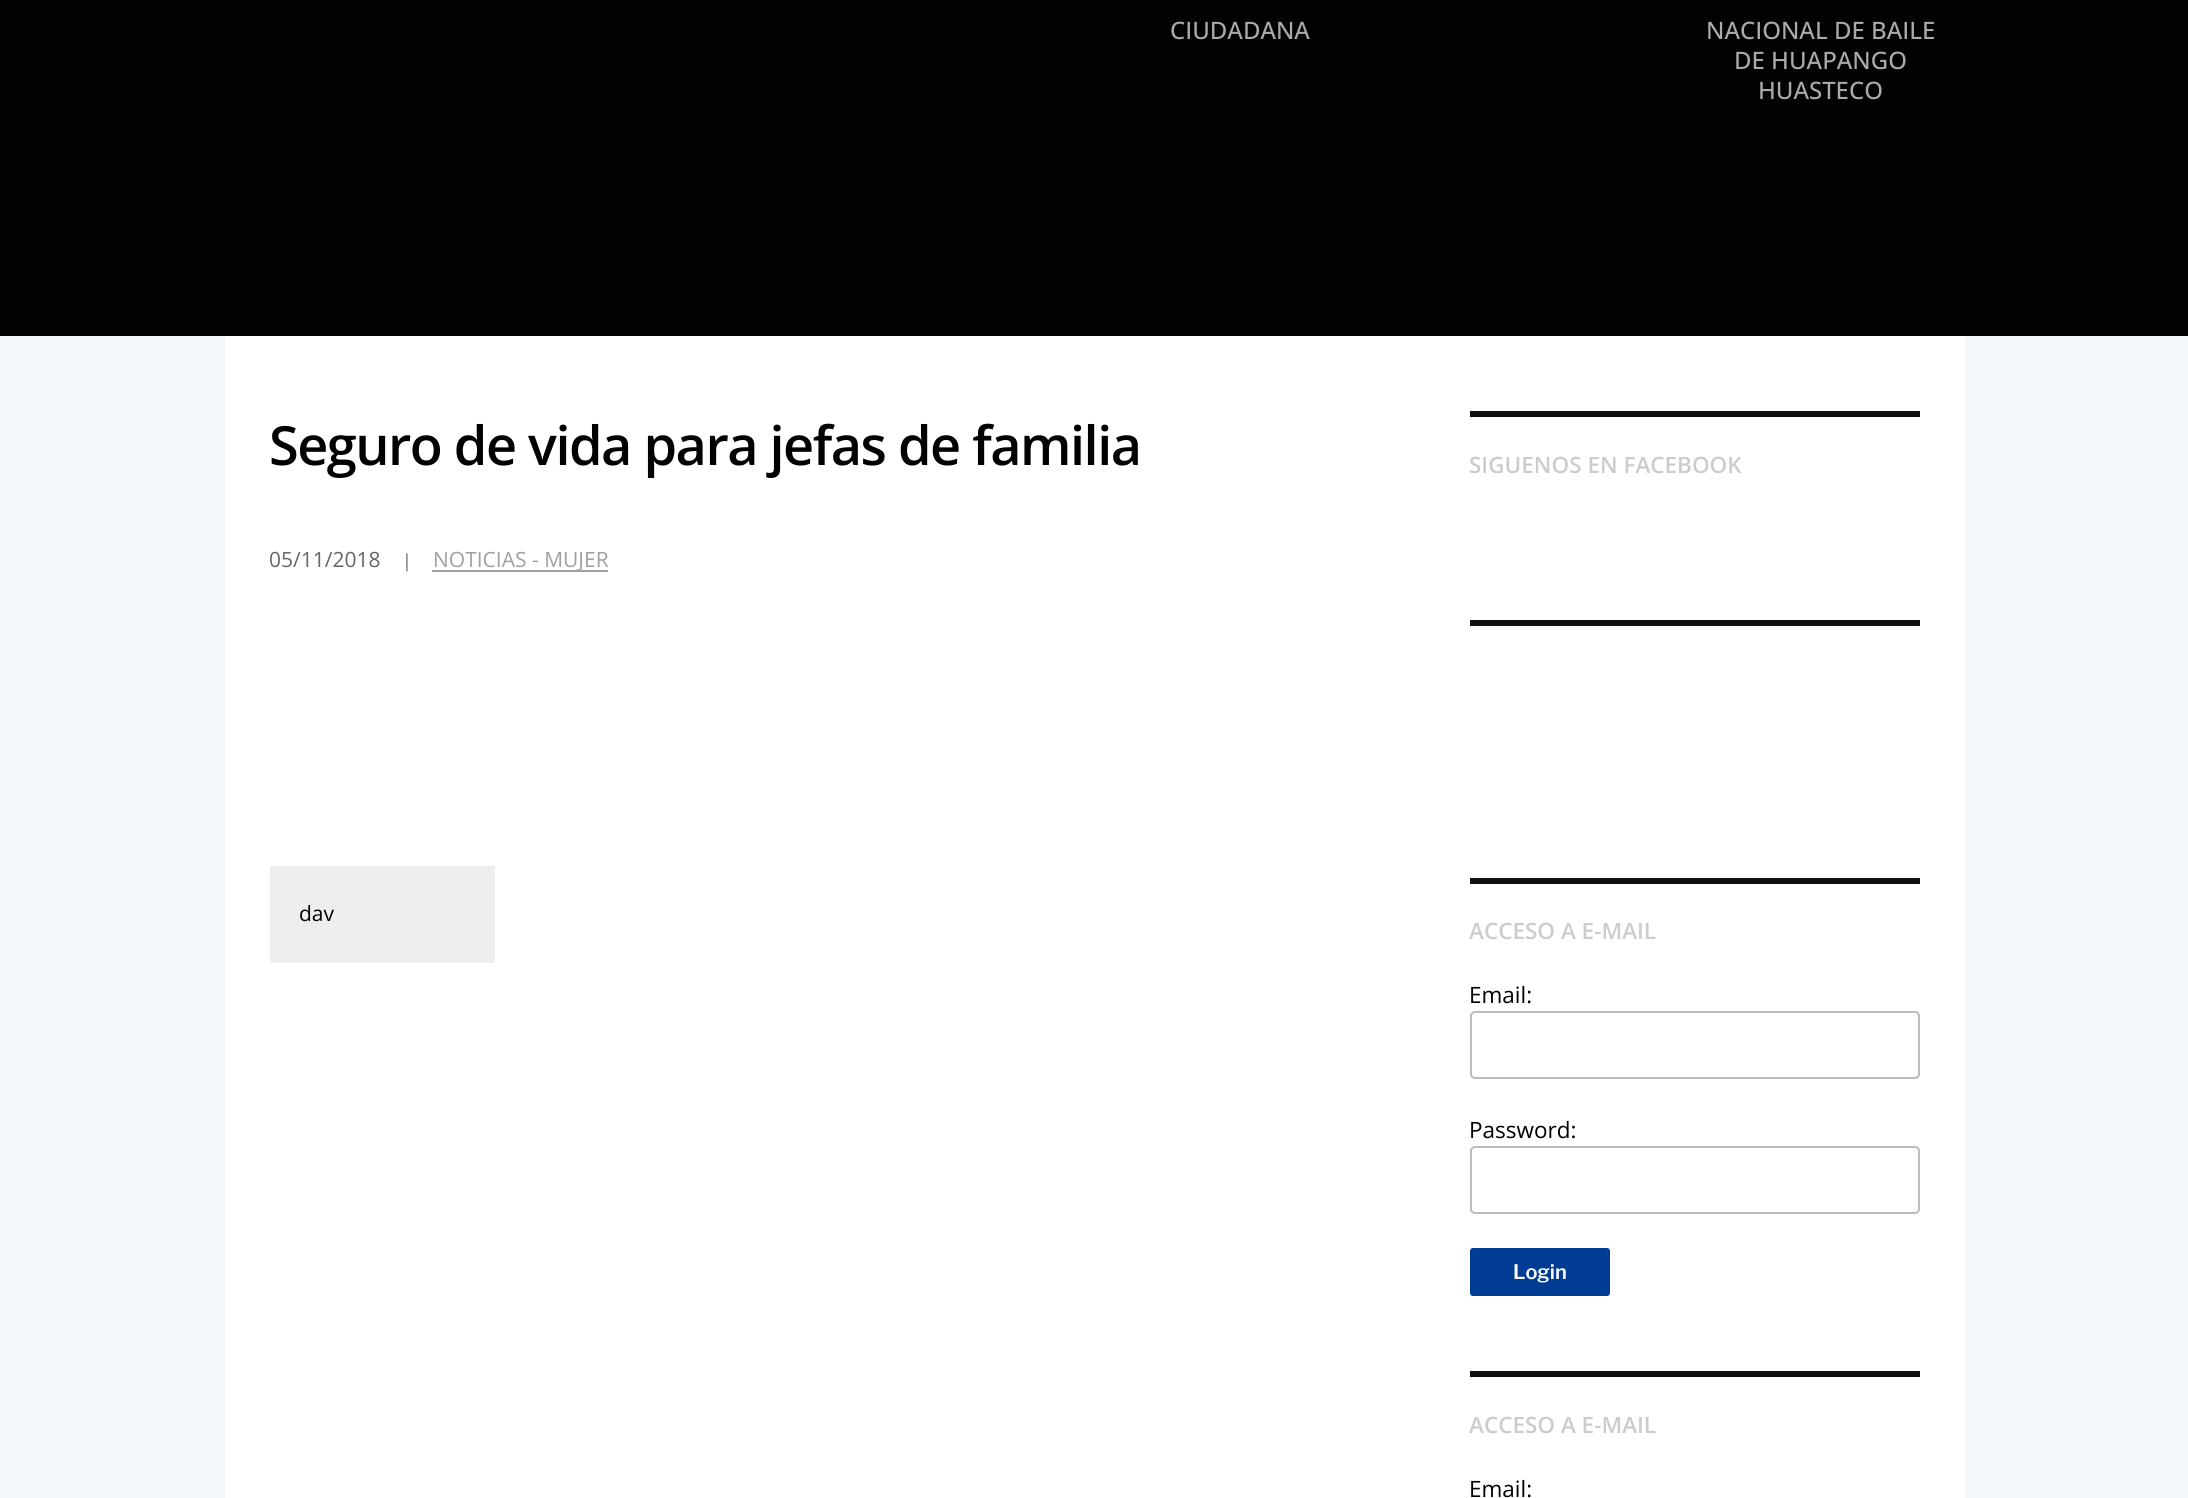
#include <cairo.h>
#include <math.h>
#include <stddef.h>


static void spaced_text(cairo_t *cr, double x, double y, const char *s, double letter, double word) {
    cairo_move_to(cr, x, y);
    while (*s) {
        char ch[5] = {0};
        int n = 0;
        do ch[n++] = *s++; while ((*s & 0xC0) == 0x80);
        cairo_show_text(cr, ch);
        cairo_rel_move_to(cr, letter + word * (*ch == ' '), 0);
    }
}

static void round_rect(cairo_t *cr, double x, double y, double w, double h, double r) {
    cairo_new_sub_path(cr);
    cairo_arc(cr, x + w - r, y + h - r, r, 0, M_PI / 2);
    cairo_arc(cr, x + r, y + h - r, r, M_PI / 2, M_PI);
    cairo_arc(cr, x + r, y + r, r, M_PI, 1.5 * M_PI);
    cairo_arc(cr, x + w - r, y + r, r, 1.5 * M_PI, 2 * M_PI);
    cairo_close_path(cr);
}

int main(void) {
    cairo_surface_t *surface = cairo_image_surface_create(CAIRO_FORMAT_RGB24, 2188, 1498);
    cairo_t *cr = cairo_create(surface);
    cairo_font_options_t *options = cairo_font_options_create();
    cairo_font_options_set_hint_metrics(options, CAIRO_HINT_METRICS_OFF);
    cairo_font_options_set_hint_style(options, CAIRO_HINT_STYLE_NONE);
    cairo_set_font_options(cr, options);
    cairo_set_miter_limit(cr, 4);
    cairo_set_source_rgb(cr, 0.957, 0.965, 0.973);
    cairo_paint(cr);
    cairo_set_source_rgb(cr, 0.008, 0.008, 0.008);
    cairo_rectangle(cr, 0, 0, 2188, 336);
    cairo_fill(cr);
    cairo_select_font_face(cr, "Open Sans Medium", CAIRO_FONT_SLANT_NORMAL, CAIRO_FONT_WEIGHT_NORMAL);
    cairo_set_font_size(cr, 24);
    cairo_set_source_rgb(cr, 0.667, 0.667, 0.667);
    cairo_move_to(cr, 1170, 39);
    cairo_show_text(cr, "CIUDADANA");
    cairo_move_to(cr, 1706, 39);
    cairo_show_text(cr, "NACIONAL DE BAILE");
    cairo_move_to(cr, 1734, 69);
    cairo_show_text(cr, "DE HUAPANGO");
    cairo_move_to(cr, 1758, 99);
    cairo_show_text(cr, "HUASTECO");
    cairo_set_source_rgb(cr, 1, 1, 1);
    cairo_rectangle(cr, 225, 336, 1740, 1162);
    cairo_fill(cr);
    cairo_select_font_face(cr, "Open Sans SemiBold", CAIRO_FONT_SLANT_NORMAL, CAIRO_FONT_WEIGHT_NORMAL);
    cairo_set_font_size(cr, 54);
    cairo_set_source_rgb(cr, 0, 0, 0);
    spaced_text(cr, 269, 465, "Seguro de vida para jefas de familia", -1.5, 0);
    cairo_select_font_face(cr, "Open Sans", CAIRO_FONT_SLANT_NORMAL, CAIRO_FONT_WEIGHT_NORMAL);
    cairo_set_font_size(cr, 21);
    cairo_set_source_rgb(cr, 0.4, 0.4, 0.4);
    cairo_move_to(cr, 269, 567);
    cairo_show_text(cr, "05/11/2018");
    cairo_set_font_size(cr, 18);
    cairo_move_to(cr, 402, 567);
    cairo_show_text(cr, "|");
    cairo_set_source_rgb(cr, 0.627, 0.627, 0.627);
    cairo_rectangle(cr, 432, 570, 176, 2);
    cairo_fill(cr);
    cairo_set_font_size(cr, 21);
    cairo_move_to(cr, 433, 567);
    cairo_show_text(cr, "NOTICIAS - MUJER");
    cairo_set_source_rgb(cr, 0.933, 0.933, 0.933);
    cairo_rectangle(cr, 270, 866, 225, 97);
    cairo_fill(cr);
    cairo_set_source_rgb(cr, 0, 0, 0);
    cairo_move_to(cr, 299, 921);
    cairo_show_text(cr, "dav");
    cairo_set_source_rgb(cr, 0.067, 0.067, 0.067);
    cairo_rectangle(cr, 1470, 411, 450, 6);
    cairo_fill(cr);
    cairo_select_font_face(cr, "Open Sans SemiBold", CAIRO_FONT_SLANT_NORMAL, CAIRO_FONT_WEIGHT_NORMAL);
    cairo_set_font_size(cr, 22.5);
    cairo_set_source_rgb(cr, 0.8, 0.8, 0.8);
    cairo_move_to(cr, 1469, 473);
    cairo_show_text(cr, "SIGUENOS EN FACEBOOK");
    cairo_set_source_rgb(cr, 0.067, 0.067, 0.067);
    cairo_rectangle(cr, 1470, 620, 450, 6);
    cairo_fill(cr);
    cairo_rectangle(cr, 1470, 878, 450, 6);
    cairo_fill(cr);
    cairo_set_source_rgb(cr, 0.8, 0.8, 0.8);
    cairo_move_to(cr, 1469, 939);
    cairo_show_text(cr, "ACCESO A E-MAIL");
    cairo_select_font_face(cr, "Open Sans", CAIRO_FONT_SLANT_NORMAL, CAIRO_FONT_WEIGHT_NORMAL);
    cairo_set_source_rgb(cr, 0, 0, 0);
    cairo_move_to(cr, 1469, 1003);
    cairo_show_text(cr, "Email:");
    round_rect(cr, 1471, 1012, 448, 66, 4);
    cairo_set_source_rgb(cr, 0.733, 0.733, 0.733);
    cairo_stroke(cr);
    cairo_set_source_rgb(cr, 0, 0, 0);
    cairo_move_to(cr, 1469, 1138);
    cairo_show_text(cr, "Password:");
    round_rect(cr, 1471, 1147, 448, 66, 4);
    cairo_set_source_rgb(cr, 0.733, 0.733, 0.733);
    cairo_stroke(cr);
    cairo_set_source_rgb(cr, 0.004, 0.231, 0.576);
    round_rect(cr, 1470, 1248, 140, 48, 3);
    cairo_fill(cr);
    cairo_select_font_face(cr, "Libre Franklin SemiBold", CAIRO_FONT_SLANT_NORMAL, CAIRO_FONT_WEIGHT_NORMAL);
    cairo_set_font_size(cr, 20);
    cairo_set_source_rgb(cr, 1, 1, 1);
    cairo_move_to(cr, 1513, 1279);
    cairo_show_text(cr, "Login");
    cairo_set_source_rgb(cr, 0.067, 0.067, 0.067);
    cairo_rectangle(cr, 1470, 1371, 450, 6);
    cairo_fill(cr);
    cairo_select_font_face(cr, "Open Sans SemiBold", CAIRO_FONT_SLANT_NORMAL, CAIRO_FONT_WEIGHT_NORMAL);
    cairo_set_font_size(cr, 22.5);
    cairo_set_source_rgb(cr, 0.8, 0.8, 0.8);
    cairo_move_to(cr, 1469, 1433);
    cairo_show_text(cr, "ACCESO A E-MAIL");
    cairo_select_font_face(cr, "Open Sans", CAIRO_FONT_SLANT_NORMAL, CAIRO_FONT_WEIGHT_NORMAL);
    cairo_set_source_rgb(cr, 0, 0, 0);
    cairo_move_to(cr, 1469, 1497);
    cairo_show_text(cr, "Email:");
    cairo_surface_write_to_png(surface, "page.png");
    cairo_font_options_destroy(options);
    cairo_destroy(cr);
    cairo_surface_destroy(surface);
    return 0;
}
